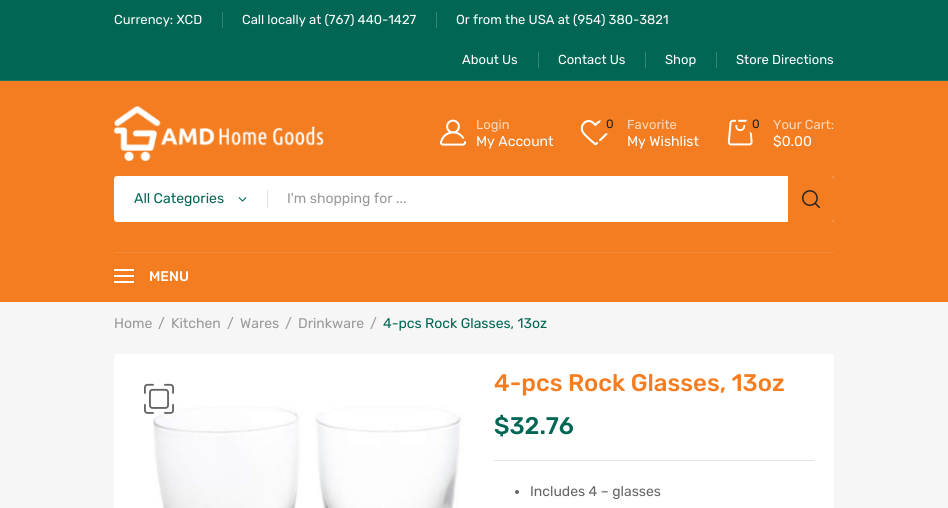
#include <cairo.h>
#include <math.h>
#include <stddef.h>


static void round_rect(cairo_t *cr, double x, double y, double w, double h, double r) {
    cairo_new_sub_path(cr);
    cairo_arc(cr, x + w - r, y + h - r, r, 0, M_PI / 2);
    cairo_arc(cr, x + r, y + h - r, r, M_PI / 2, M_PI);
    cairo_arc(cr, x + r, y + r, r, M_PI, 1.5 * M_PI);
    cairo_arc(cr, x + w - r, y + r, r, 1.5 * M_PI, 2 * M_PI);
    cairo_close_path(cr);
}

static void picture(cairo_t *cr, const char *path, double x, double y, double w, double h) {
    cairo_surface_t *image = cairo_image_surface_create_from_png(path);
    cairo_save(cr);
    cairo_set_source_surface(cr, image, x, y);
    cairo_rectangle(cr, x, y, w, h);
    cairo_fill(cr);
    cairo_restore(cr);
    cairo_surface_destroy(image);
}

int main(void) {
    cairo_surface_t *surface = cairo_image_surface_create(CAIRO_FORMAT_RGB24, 948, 508);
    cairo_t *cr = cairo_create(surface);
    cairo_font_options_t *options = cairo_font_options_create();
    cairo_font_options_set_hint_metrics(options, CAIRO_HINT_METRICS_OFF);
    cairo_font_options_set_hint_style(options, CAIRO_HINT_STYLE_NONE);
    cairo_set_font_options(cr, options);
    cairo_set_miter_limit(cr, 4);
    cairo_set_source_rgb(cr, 0.961, 0.961, 0.961);
    cairo_paint(cr);
    cairo_set_source_rgb(cr, 0.953, 0.49, 0.125);
    cairo_rectangle(cr, 0, 81, 948, 221);
    cairo_fill(cr);
    cairo_set_source_rgb(cr, 0.004, 0.4, 0.325);
    cairo_rectangle(cr, 0, 0, 948, 80);
    cairo_fill(cr);
    cairo_set_source_rgb(cr, 0.102, 0.459, 0.392);
    cairo_rectangle(cr, 0, 80, 948, 1);
    cairo_fill(cr);
    cairo_select_font_face(cr, "Rubik", CAIRO_FONT_SLANT_NORMAL, CAIRO_FONT_WEIGHT_NORMAL);
    cairo_set_font_size(cr, 13);
    cairo_set_source_rgb(cr, 1, 1, 1);
    cairo_move_to(cr, 114, 24);
    cairo_show_text(cr, "Currency: XCD");
    cairo_set_source_rgb(cr, 0.204, 0.522, 0.459);
    cairo_rectangle(cr, 222, 12, 1, 16);
    cairo_fill(cr);
    cairo_set_source_rgb(cr, 1, 1, 1);
    cairo_move_to(cr, 242, 24);
    cairo_show_text(cr, "Call locally at (767) 440-1427");
    cairo_set_source_rgb(cr, 0.204, 0.522, 0.459);
    cairo_rectangle(cr, 436, 12, 1, 16);
    cairo_fill(cr);
    cairo_set_source_rgb(cr, 1, 1, 1);
    cairo_move_to(cr, 456, 24);
    cairo_show_text(cr, "Or from the USA at (954) 380-3821");
    cairo_move_to(cr, 462, 64);
    cairo_show_text(cr, "About Us");
    cairo_set_source_rgb(cr, 0.204, 0.522, 0.459);
    cairo_rectangle(cr, 538, 52, 1, 16);
    cairo_fill(cr);
    cairo_set_source_rgb(cr, 1, 1, 1);
    cairo_move_to(cr, 558, 64);
    cairo_show_text(cr, "Contact Us");
    cairo_set_source_rgb(cr, 0.204, 0.522, 0.459);
    cairo_rectangle(cr, 645, 52, 1, 16);
    cairo_fill(cr);
    cairo_set_source_rgb(cr, 1, 1, 1);
    cairo_move_to(cr, 665, 64);
    cairo_show_text(cr, "Shop");
    cairo_set_source_rgb(cr, 0.204, 0.522, 0.459);
    cairo_rectangle(cr, 716, 52, 1, 16);
    cairo_fill(cr);
    cairo_set_source_rgb(cr, 1, 1, 1);
    cairo_move_to(cr, 736, 64);
    cairo_show_text(cr, "Store Directions");
    picture(cr, "img1.png", 114, 106, 210, 55);
    picture(cr, "img2.png", 440, 119, 26, 27);
    cairo_set_source_rgb(cr, 0.984, 0.847, 0.737);
    cairo_move_to(cr, 476, 129);
    cairo_show_text(cr, "Login");
    cairo_set_font_size(cr, 14);
    cairo_set_source_rgb(cr, 1, 1, 1);
    cairo_move_to(cr, 476, 146);
    cairo_show_text(cr, "My Account");
    picture(cr, "img3.png", 580, 120, 29, 26);
    cairo_set_source_rgb(cr, 0.953, 0.49, 0.125);
    cairo_arc(cr, 610, 124, 10, 0, 2 * M_PI);
    cairo_fill(cr);
    cairo_set_font_size(cr, 12);
    cairo_set_source_rgb(cr, 0.133, 0.133, 0.133);
    cairo_move_to(cr, 606, 128);
    cairo_show_text(cr, "0");
    cairo_set_font_size(cr, 13);
    cairo_set_source_rgb(cr, 0.984, 0.847, 0.737);
    cairo_move_to(cr, 627, 129);
    cairo_show_text(cr, "Favorite");
    cairo_set_font_size(cr, 14);
    cairo_set_source_rgb(cr, 1, 1, 1);
    cairo_move_to(cr, 627, 146);
    cairo_show_text(cr, "My Wishlist");
    picture(cr, "img4.png", 727, 119, 26, 27);
    cairo_set_source_rgb(cr, 0.953, 0.49, 0.125);
    cairo_arc(cr, 756, 124, 10, 0, 2 * M_PI);
    cairo_fill(cr);
    cairo_set_font_size(cr, 12);
    cairo_set_source_rgb(cr, 0.133, 0.133, 0.133);
    cairo_move_to(cr, 752, 128);
    cairo_show_text(cr, "0");
    cairo_set_font_size(cr, 13);
    cairo_set_source_rgb(cr, 0.984, 0.847, 0.737);
    cairo_move_to(cr, 773, 129);
    cairo_show_text(cr, "Your Cart:");
    cairo_set_font_size(cr, 14);
    cairo_set_source_rgb(cr, 1, 1, 1);
    cairo_move_to(cr, 773, 146);
    cairo_show_text(cr, "$0.00");
    round_rect(cr, 114, 176, 720, 46, 3);
    cairo_fill(cr);
    cairo_set_source_rgb(cr, 0.004, 0.4, 0.325);
    cairo_move_to(cr, 134, 203);
    cairo_show_text(cr, "All Categories");
    picture(cr, "img5.png", 238, 197, 9, 5);
    cairo_set_source_rgb(cr, 0.878, 0.878, 0.878);
    cairo_rectangle(cr, 267, 190, 1, 18);
    cairo_fill(cr);
    cairo_set_source_rgb(cr, 0.6, 0.6, 0.6);
    cairo_move_to(cr, 287, 203);
    cairo_show_text(cr, "I'm shopping for ...");
    cairo_set_source_rgb(cr, 0.953, 0.49, 0.125);
    cairo_new_path(cr);
    cairo_move_to(cr, 788, 176);
    cairo_line_to(cr, 831, 176);
    cairo_curve_to(cr, 832.5, 176, 834, 177.5, 834, 179);
    cairo_line_to(cr, 834, 219);
    cairo_curve_to(cr, 834, 220.5, 832.5, 222, 831, 222);
    cairo_line_to(cr, 788, 222);
    cairo_close_path(cr);
    cairo_fill(cr);
    picture(cr, "img6.png", 802, 190, 18, 19);
    cairo_set_source_rgb(cr, 0.957, 0.541, 0.212);
    cairo_rectangle(cr, 114, 252, 720, 1);
    cairo_fill(cr);
    cairo_set_source_rgb(cr, 1, 1, 1);
    cairo_rectangle(cr, 114, 269, 20, 2);
    cairo_fill(cr);
    cairo_rectangle(cr, 114, 275, 20, 2);
    cairo_fill(cr);
    cairo_rectangle(cr, 114, 281, 20, 2);
    cairo_fill(cr);
    cairo_select_font_face(cr, "Rubik Medium", CAIRO_FONT_SLANT_NORMAL, CAIRO_FONT_WEIGHT_NORMAL);
    cairo_move_to(cr, 149, 281);
    cairo_show_text(cr, "MENU");
    cairo_select_font_face(cr, "Rubik", CAIRO_FONT_SLANT_NORMAL, CAIRO_FONT_WEIGHT_NORMAL);
    cairo_set_source_rgb(cr, 0.6, 0.6, 0.6);
    cairo_move_to(cr, 114, 328);
    cairo_show_text(cr, "Home");
    cairo_move_to(cr, 158, 328);
    cairo_show_text(cr, "/");
    cairo_move_to(cr, 171, 328);
    cairo_show_text(cr, "Kitchen");
    cairo_move_to(cr, 227, 328);
    cairo_show_text(cr, "/");
    cairo_move_to(cr, 240, 328);
    cairo_show_text(cr, "Wares");
    cairo_move_to(cr, 285, 328);
    cairo_show_text(cr, "/");
    cairo_move_to(cr, 298, 328);
    cairo_show_text(cr, "Drinkware");
    cairo_move_to(cr, 370, 328);
    cairo_show_text(cr, "/");
    cairo_set_source_rgb(cr, 0.004, 0.4, 0.325);
    cairo_move_to(cr, 383, 328);
    cairo_show_text(cr, "4-pcs Rock Glasses, 13oz");
    cairo_set_source_rgb(cr, 1, 1, 1);
    round_rect(cr, 114, 354, 720, 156, 2);
    cairo_fill(cr);
    picture(cr, "img8.png", 153, 406, 311, 102);
    picture(cr, "img7.png", 144, 383, 30, 31);
    cairo_select_font_face(cr, "Rubik Medium", CAIRO_FONT_SLANT_NORMAL, CAIRO_FONT_WEIGHT_NORMAL);
    cairo_set_font_size(cr, 24);
    cairo_set_source_rgb(cr, 0.953, 0.49, 0.125);
    cairo_move_to(cr, 494, 391);
    cairo_show_text(cr, "4-pcs Rock Glasses, 13oz");
    cairo_set_source_rgb(cr, 0.004, 0.4, 0.325);
    cairo_move_to(cr, 494, 434);
    cairo_show_text(cr, "$32.76");
    cairo_set_source_rgb(cr, 0.898, 0.898, 0.898);
    cairo_rectangle(cr, 494, 460, 320, 1);
    cairo_fill(cr);
    cairo_set_source_rgb(cr, 0.4, 0.4, 0.4);
    cairo_arc(cr, 517, 492, 2, 0, 2 * M_PI);
    cairo_fill(cr);
    cairo_select_font_face(cr, "Rubik", CAIRO_FONT_SLANT_NORMAL, CAIRO_FONT_WEIGHT_NORMAL);
    cairo_set_font_size(cr, 14);
    cairo_move_to(cr, 530, 496);
    cairo_show_text(cr, "Includes 4 – glasses");
    cairo_surface_write_to_png(surface, "page.png");
    cairo_font_options_destroy(options);
    cairo_destroy(cr);
    cairo_surface_destroy(surface);
    return 0;
}
